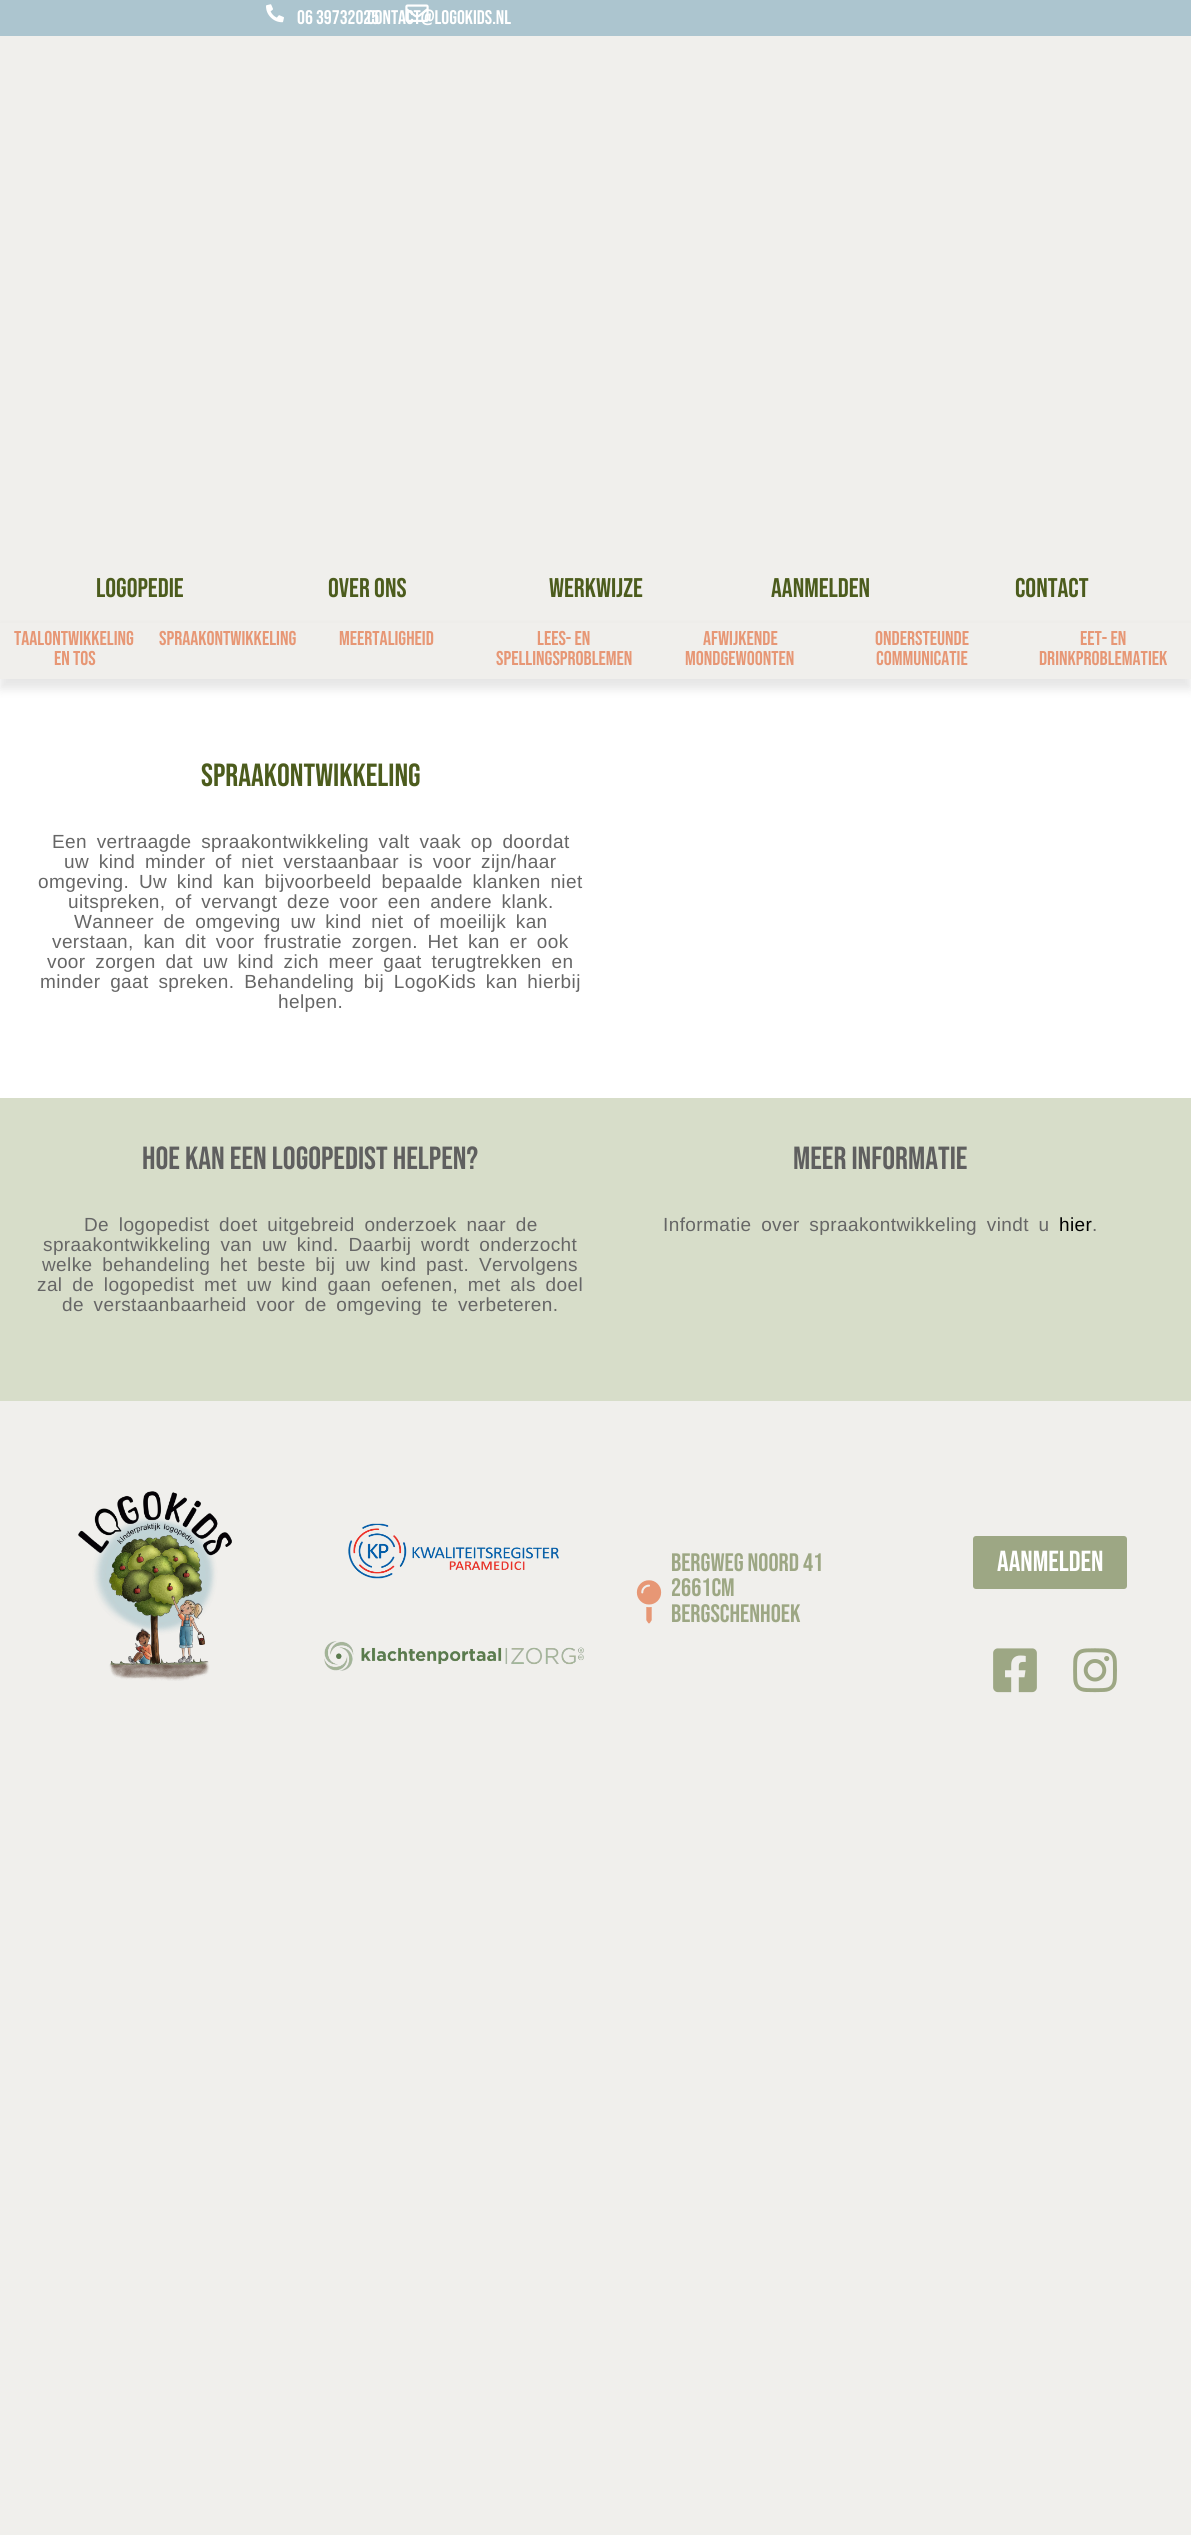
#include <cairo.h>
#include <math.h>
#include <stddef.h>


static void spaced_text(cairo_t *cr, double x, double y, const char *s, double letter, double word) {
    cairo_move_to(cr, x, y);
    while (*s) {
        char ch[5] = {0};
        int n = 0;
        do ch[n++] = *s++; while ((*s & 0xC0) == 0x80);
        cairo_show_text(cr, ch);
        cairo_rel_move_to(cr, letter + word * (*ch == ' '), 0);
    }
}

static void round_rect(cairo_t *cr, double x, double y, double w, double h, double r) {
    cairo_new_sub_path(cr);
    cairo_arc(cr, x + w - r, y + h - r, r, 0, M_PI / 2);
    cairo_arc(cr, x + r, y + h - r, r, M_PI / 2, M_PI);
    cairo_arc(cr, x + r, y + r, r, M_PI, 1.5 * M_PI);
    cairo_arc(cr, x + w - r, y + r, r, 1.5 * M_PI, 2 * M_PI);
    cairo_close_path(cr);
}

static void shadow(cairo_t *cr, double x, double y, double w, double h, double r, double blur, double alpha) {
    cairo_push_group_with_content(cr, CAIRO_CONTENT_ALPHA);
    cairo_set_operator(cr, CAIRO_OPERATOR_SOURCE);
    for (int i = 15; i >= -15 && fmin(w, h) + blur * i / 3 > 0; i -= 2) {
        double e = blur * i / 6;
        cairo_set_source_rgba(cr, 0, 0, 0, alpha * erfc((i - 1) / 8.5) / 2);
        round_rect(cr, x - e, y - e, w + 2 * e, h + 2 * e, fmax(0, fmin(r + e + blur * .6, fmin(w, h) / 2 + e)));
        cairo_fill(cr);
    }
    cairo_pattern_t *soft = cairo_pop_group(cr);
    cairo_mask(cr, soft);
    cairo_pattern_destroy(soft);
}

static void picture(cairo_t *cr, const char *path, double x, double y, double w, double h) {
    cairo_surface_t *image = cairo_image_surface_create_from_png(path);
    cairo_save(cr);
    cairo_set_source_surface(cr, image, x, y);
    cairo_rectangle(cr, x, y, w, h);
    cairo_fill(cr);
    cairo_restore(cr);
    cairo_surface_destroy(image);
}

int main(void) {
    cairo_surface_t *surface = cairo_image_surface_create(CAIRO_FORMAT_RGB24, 1191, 2535);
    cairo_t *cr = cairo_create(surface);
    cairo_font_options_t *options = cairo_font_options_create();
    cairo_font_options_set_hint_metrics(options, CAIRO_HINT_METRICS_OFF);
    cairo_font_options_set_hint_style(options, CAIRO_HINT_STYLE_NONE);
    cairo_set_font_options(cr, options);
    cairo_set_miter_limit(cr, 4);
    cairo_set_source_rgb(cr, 0.941, 0.937, 0.925);
    cairo_paint(cr);
    cairo_set_source_rgb(cr, 0.675, 0.773, 0.812);
    cairo_rectangle(cr, 0, 0, 1191, 36);
    cairo_fill(cr);
    picture(cr, "img1.png", 266, 4, 18, 19);
    cairo_select_font_face(cr, "Bebas Neue", CAIRO_FONT_SLANT_NORMAL, CAIRO_FONT_WEIGHT_NORMAL);
    cairo_set_font_size(cr, 19.75);
    cairo_set_source_rgb(cr, 1, 1, 1);
    cairo_move_to(cr, 297, 24);
    cairo_show_text(cr, "06 39732025");
    picture(cr, "img2.png", 405, 4, 24, 18);
    cairo_move_to(cr, 367, 24);
    cairo_show_text(cr, "contact@logokids.nl");
    cairo_set_font_size(cr, 27);
    cairo_set_source_rgb(cr, 0.298, 0.361, 0.114);
    cairo_move_to(cr, 96, 597);
    cairo_show_text(cr, "LOGOPEDIE");
    cairo_move_to(cr, 328, 597);
    cairo_show_text(cr, "OVER ONS");
    cairo_move_to(cr, 549, 597);
    cairo_show_text(cr, "WERKWIJZE");
    cairo_move_to(cr, 771, 597);
    cairo_show_text(cr, "AANMELDEN");
    cairo_move_to(cr, 1015, 597);
    cairo_show_text(cr, "CONTACT");
    cairo_set_source_rgb(cr, 1, 1, 1);
    cairo_rectangle(cr, 0, 679, 1191, 419);
    cairo_fill(cr);
    cairo_set_source_rgb(cr, 0, 0, 0);
    shadow(cr, 0, 629, 1191, 60, 0, 5, 0.1);
    cairo_set_source_rgb(cr, 0.941, 0.937, 0.925);
    cairo_rectangle(cr, 0, 623, 1191, 56);
    cairo_fill(cr);
    cairo_set_font_size(cr, 20);
    cairo_set_source_rgb(cr, 0.906, 0.592, 0.459);
    cairo_move_to(cr, 14, 645);
    cairo_show_text(cr, "taalontwikkeling");
    cairo_move_to(cr, 54, 665);
    cairo_show_text(cr, "en tos");
    cairo_move_to(cr, 159, 645);
    cairo_show_text(cr, "spraakontwikkeling");
    cairo_move_to(cr, 339, 645);
    cairo_show_text(cr, "meertaligheid");
    cairo_move_to(cr, 537, 645);
    cairo_show_text(cr, "Lees- en");
    cairo_move_to(cr, 496, 665);
    cairo_show_text(cr, "spellingsproblemen");
    cairo_move_to(cr, 703, 645);
    cairo_show_text(cr, "Afwijkende");
    cairo_move_to(cr, 685, 665);
    cairo_show_text(cr, "mondgewoonten");
    cairo_move_to(cr, 875, 645);
    cairo_show_text(cr, "Ondersteunde");
    cairo_move_to(cr, 876, 665);
    cairo_show_text(cr, "communicatie");
    cairo_move_to(cr, 1080, 645);
    cairo_show_text(cr, "Eet- en");
    cairo_move_to(cr, 1039, 665);
    cairo_show_text(cr, "drinkproblematiek");
    cairo_set_font_size(cr, 32);
    cairo_set_source_rgb(cr, 0.298, 0.361, 0.114);
    cairo_move_to(cr, 201, 786);
    cairo_show_text(cr, "spraakontwikkeling");
    cairo_select_font_face(cr, "Liberation Sans", CAIRO_FONT_SLANT_NORMAL, CAIRO_FONT_WEIGHT_NORMAL);
    cairo_set_font_size(cr, 19);
    cairo_set_source_rgb(cr, 0.4, 0.4, 0.4);
    spaced_text(cr, 52, 848, "Een vertraagde spraakontwikkeling valt vaak op doordat", 0.4, 4);
    spaced_text(cr, 64, 868, "uw kind minder of niet verstaanbaar is voor zijn/haar", 0.4, 4);
    spaced_text(cr, 38, 888, "omgeving. Uw kind kan bijvoorbeeld bepaalde klanken niet", 0.4, 4);
    spaced_text(cr, 68, 908, "uitspreken, of vervangt deze voor een andere klank.", 0.4, 4);
    spaced_text(cr, 74, 928, "Wanneer de omgeving uw kind niet of moeilijk kan", 0.4, 4);
    spaced_text(cr, 52, 948, "verstaan, kan dit voor frustratie zorgen. Het kan er ook", 0.4, 4);
    spaced_text(cr, 47, 968, "voor zorgen dat uw kind zich meer gaat terugtrekken en", 0.4, 4);
    spaced_text(cr, 40, 988, "minder gaat spreken. Behandeling bij LogoKids kan hierbij", 0.4, 4);
    spaced_text(cr, 278, 1008, "helpen.", 0.4, 0);
    cairo_set_source_rgb(cr, 0.843, 0.867, 0.788);
    cairo_rectangle(cr, 0, 1098, 1191, 303);
    cairo_fill(cr);
    cairo_select_font_face(cr, "Bebas Neue", CAIRO_FONT_SLANT_NORMAL, CAIRO_FONT_WEIGHT_NORMAL);
    cairo_set_font_size(cr, 32);
    cairo_set_source_rgb(cr, 0.373, 0.373, 0.373);
    cairo_move_to(cr, 142, 1169);
    cairo_show_text(cr, "hoe kan een logopedist helpen?");
    cairo_select_font_face(cr, "Liberation Sans", CAIRO_FONT_SLANT_NORMAL, CAIRO_FONT_WEIGHT_NORMAL);
    cairo_set_font_size(cr, 19);
    cairo_set_source_rgb(cr, 0.4, 0.4, 0.4);
    spaced_text(cr, 84, 1231, "De logopedist doet uitgebreid onderzoek naar de", 0.4, 4);
    spaced_text(cr, 43, 1251, "spraakontwikkeling van uw kind. Daarbij wordt onderzocht", 0.4, 4);
    spaced_text(cr, 42, 1271, "welke behandeling het beste bij uw kind past. Vervolgens", 0.4, 4);
    spaced_text(cr, 37, 1291, "zal de logopedist met uw kind gaan oefenen, met als doel", 0.4, 4);
    spaced_text(cr, 62, 1311, "de verstaanbaarheid voor de omgeving te verbeteren.", 0.4, 4);
    cairo_select_font_face(cr, "Bebas Neue", CAIRO_FONT_SLANT_NORMAL, CAIRO_FONT_WEIGHT_NORMAL);
    cairo_set_font_size(cr, 32);
    cairo_set_source_rgb(cr, 0.373, 0.373, 0.373);
    cairo_move_to(cr, 793, 1169);
    cairo_show_text(cr, "meer informatie");
    cairo_select_font_face(cr, "Liberation Sans", CAIRO_FONT_SLANT_NORMAL, CAIRO_FONT_WEIGHT_NORMAL);
    cairo_set_font_size(cr, 19);
    cairo_set_source_rgb(cr, 0.4, 0.4, 0.4);
    spaced_text(cr, 663, 1231, "Informatie over spraakontwikkeling vindt u", 0.4, 4);
    cairo_set_source_rgb(cr, 0, 0, 0);
    spaced_text(cr, 1059, 1231, "hier", 0.4, 0);
    cairo_set_source_rgb(cr, 0.4, 0.4, 0.4);
    spaced_text(cr, 1092, 1231, ".", 0.4, 0);
    picture(cr, "img3.png", 78, 1491, 154, 190);
    picture(cr, "img4.png", 348, 1523, 211, 56);
    picture(cr, "img5.png", 324, 1641, 260, 30);
    picture(cr, "img6.png", 636, 1580, 26, 44);
    cairo_select_font_face(cr, "Bebas Neue", CAIRO_FONT_SLANT_NORMAL, CAIRO_FONT_WEIGHT_NORMAL);
    cairo_set_font_size(cr, 25.25);
    cairo_set_source_rgb(cr, 0.616, 0.655, 0.518);
    cairo_move_to(cr, 671, 1571);
    cairo_show_text(cr, "Bergweg Noord 41");
    cairo_move_to(cr, 671, 1596);
    cairo_show_text(cr, "2661CM");
    cairo_move_to(cr, 671, 1622);
    cairo_show_text(cr, "Bergschenhoek");
    round_rect(cr, 973, 1536, 154, 53, 3);
    cairo_fill(cr);
    cairo_set_font_size(cr, 29);
    cairo_set_source_rgb(cr, 1, 1, 1);
    cairo_move_to(cr, 997, 1571);
    cairo_show_text(cr, "aanmelden");
    picture(cr, "img7.png", 993, 1648, 44, 45);
    picture(cr, "img8.png", 1073, 1648, 44, 45);
    cairo_surface_write_to_png(surface, "page.png");
    cairo_font_options_destroy(options);
    cairo_destroy(cr);
    cairo_surface_destroy(surface);
    return 0;
}
